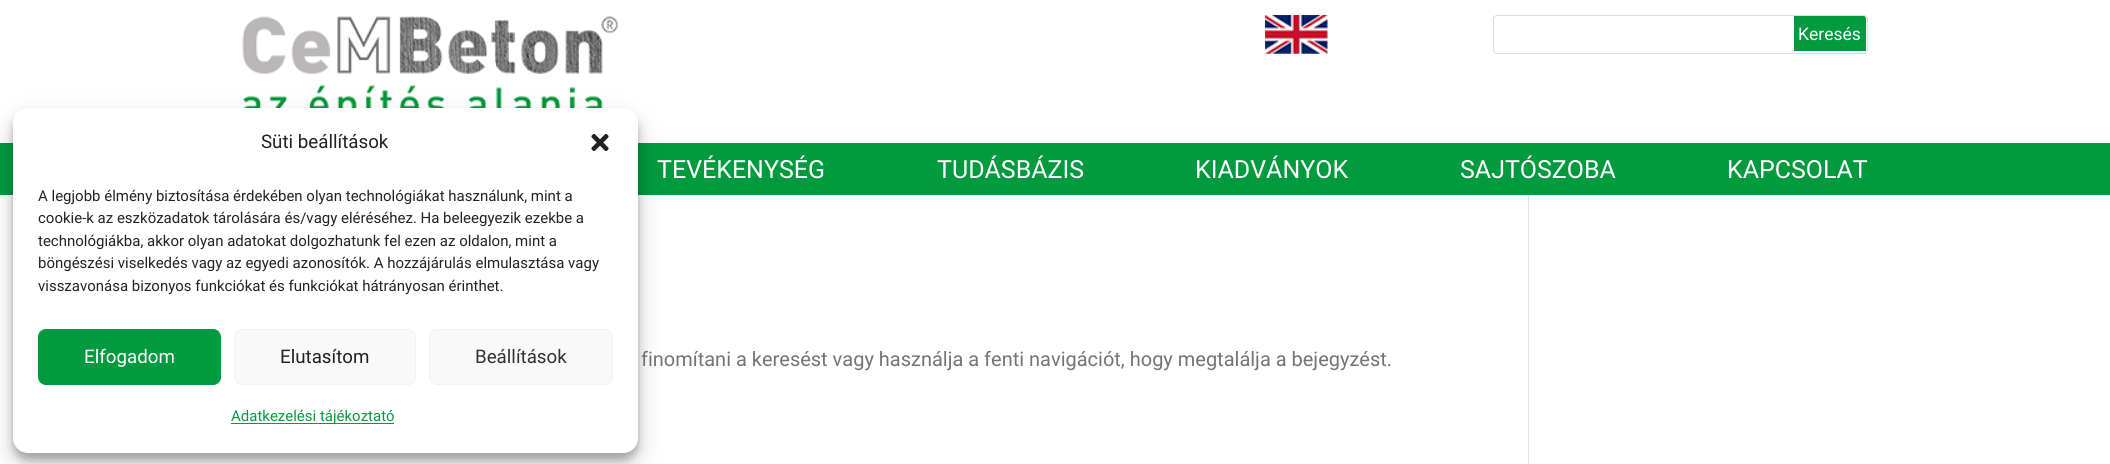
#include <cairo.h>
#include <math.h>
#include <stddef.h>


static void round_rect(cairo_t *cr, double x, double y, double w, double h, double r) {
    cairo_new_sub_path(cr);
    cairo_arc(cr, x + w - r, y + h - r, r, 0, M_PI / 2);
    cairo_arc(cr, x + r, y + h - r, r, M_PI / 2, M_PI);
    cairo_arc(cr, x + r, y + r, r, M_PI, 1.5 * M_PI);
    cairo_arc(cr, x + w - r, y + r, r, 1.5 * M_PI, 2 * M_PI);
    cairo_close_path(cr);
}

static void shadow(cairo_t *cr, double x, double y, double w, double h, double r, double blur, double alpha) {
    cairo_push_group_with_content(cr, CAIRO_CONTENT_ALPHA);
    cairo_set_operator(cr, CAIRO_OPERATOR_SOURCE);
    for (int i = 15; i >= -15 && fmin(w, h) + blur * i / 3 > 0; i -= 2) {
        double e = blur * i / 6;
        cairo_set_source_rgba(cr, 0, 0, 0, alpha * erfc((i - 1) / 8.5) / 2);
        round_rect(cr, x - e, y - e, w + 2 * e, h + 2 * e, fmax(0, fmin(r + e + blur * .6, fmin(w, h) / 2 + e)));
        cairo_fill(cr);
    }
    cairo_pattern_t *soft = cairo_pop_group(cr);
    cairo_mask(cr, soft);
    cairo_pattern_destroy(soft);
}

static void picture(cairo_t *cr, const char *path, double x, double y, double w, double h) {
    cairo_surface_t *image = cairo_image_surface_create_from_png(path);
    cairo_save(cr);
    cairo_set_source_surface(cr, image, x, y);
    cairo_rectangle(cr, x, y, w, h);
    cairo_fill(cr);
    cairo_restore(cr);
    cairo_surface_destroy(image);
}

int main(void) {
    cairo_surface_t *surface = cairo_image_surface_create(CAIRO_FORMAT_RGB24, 2110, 464);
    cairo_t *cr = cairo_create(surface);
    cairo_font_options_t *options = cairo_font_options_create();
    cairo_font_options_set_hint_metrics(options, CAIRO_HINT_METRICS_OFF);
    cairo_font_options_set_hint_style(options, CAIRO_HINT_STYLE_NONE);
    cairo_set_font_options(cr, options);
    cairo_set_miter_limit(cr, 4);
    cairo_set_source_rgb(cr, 1, 1, 1);
    cairo_paint(cr);
    picture(cr, "img2.png", 242, 16, 376, 92);
    cairo_set_source_rgb(cr, 0.004, 0.604, 0.247);
    cairo_rectangle(cr, 0, 143, 2110, 52);
    cairo_fill(cr);
    cairo_set_source_rgb(cr, 0, 0, 0);
    shadow(cr, 13, 115, 625, 345, 15, 4, 0.23);
    shadow(cr, 13, 120, 625, 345, 15, 12.5, 0.19);
    cairo_set_source_rgb(cr, 1, 1, 1);
    round_rect(cr, 13, 108, 625, 345, 15);
    cairo_fill(cr);
    cairo_select_font_face(cr, "Roboto", CAIRO_FONT_SLANT_NORMAL, CAIRO_FONT_WEIGHT_NORMAL);
    cairo_set_font_size(cr, 18.75);
    cairo_set_source_rgb(cr, 0.133, 0.133, 0.133);
    cairo_move_to(cr, 261, 148);
    cairo_show_text(cr, "Süti beállítások");
    picture(cr, "img1.png", 591, 133, 18, 18);
    cairo_set_font_size(cr, 15);
    cairo_move_to(cr, 38, 201);
    cairo_show_text(cr, "A legjobb élmény biztosítása érdekében olyan technológiákat használunk, mint a");
    cairo_move_to(cr, 38, 223);
    cairo_show_text(cr, "cookie-k az eszközadatok tárolására és/vagy eléréséhez. Ha beleegyezik ezekbe a");
    cairo_move_to(cr, 38, 246);
    cairo_show_text(cr, "technológiákba, akkor olyan adatokat dolgozhatunk fel ezen az oldalon, mint a");
    cairo_move_to(cr, 38, 268);
    cairo_show_text(cr, "böngészési viselkedés vagy az egyedi azonosítók. A hozzájárulás elmulasztása vagy");
    cairo_move_to(cr, 38, 291);
    cairo_show_text(cr, "visszavonása bizonyos funkciókat és funkciókat hátrányosan érinthet.");
    cairo_set_source_rgb(cr, 0.004, 0.604, 0.247);
    round_rect(cr, 38.5, 329.5, 182, 55, 7.5);
    cairo_fill_preserve(cr);
    cairo_set_line_width(cr, 1);
    cairo_stroke(cr);
    cairo_set_font_size(cr, 18.75);
    cairo_set_source_rgb(cr, 1, 1, 1);
    cairo_move_to(cr, 84, 363);
    cairo_show_text(cr, "Elfogadom");
    cairo_set_source_rgb(cr, 0.976, 0.976, 0.976);
    round_rect(cr, 234.5, 329.5, 181, 55, 7.5);
    cairo_fill_preserve(cr);
    cairo_set_source_rgb(cr, 0.949, 0.949, 0.949);
    cairo_stroke(cr);
    cairo_set_source_rgb(cr, 0.133, 0.133, 0.133);
    cairo_move_to(cr, 280, 363);
    cairo_show_text(cr, "Elutasítom");
    cairo_set_source_rgb(cr, 0.976, 0.976, 0.976);
    round_rect(cr, 429.5, 329.5, 183, 55, 7.5);
    cairo_fill_preserve(cr);
    cairo_set_source_rgb(cr, 0.949, 0.949, 0.949);
    cairo_stroke(cr);
    cairo_set_source_rgb(cr, 0.2, 0.2, 0.2);
    cairo_move_to(cr, 475, 363);
    cairo_show_text(cr, "Beállítások");
    cairo_set_source_rgb(cr, 0.004, 0.604, 0.247);
    cairo_rectangle(cr, 231, 423, 163, 1);
    cairo_fill(cr);
    cairo_set_font_size(cr, 15);
    cairo_move_to(cr, 231, 421);
    cairo_show_text(cr, "Adatkezelési tájékoztató");
    picture(cr, "img3.png", 1265, 15, 63, 39);
    round_rect(cr, 1493.5, 15.5, 374, 38, 3.5);
    cairo_set_source_rgb(cr, 0.867, 0.867, 0.867);
    cairo_stroke(cr);
    cairo_save(cr);
    round_rect(cr, 1494, 16, 372, 37, 2.5);
    cairo_clip(cr);
    cairo_set_source_rgb(cr, 0.004, 0.604, 0.247);
    cairo_new_path(cr);
    cairo_move_to(cr, 1794, 16);
    cairo_line_to(cr, 1863.5, 16);
    cairo_curve_to(cr, 1865, 16, 1866, 17, 1866, 18.5);
    cairo_line_to(cr, 1866, 51);
    cairo_line_to(cr, 1794, 51);
    cairo_close_path(cr);
    cairo_fill(cr);
    cairo_restore(cr);
    cairo_set_font_size(cr, 17.5);
    cairo_set_source_rgb(cr, 1, 1, 1);
    cairo_move_to(cr, 1798, 40);
    cairo_show_text(cr, "Keresés");
    cairo_set_font_size(cr, 25);
    cairo_move_to(cr, 657, 178);
    cairo_show_text(cr, "TEVÉKENYSÉG");
    cairo_move_to(cr, 937, 178);
    cairo_show_text(cr, "TUDÁSBÁZIS");
    cairo_move_to(cr, 1195, 178);
    cairo_show_text(cr, "KIADVÁNYOK");
    cairo_move_to(cr, 1460, 178);
    cairo_show_text(cr, "SAJTÓSZOBA");
    cairo_move_to(cr, 1727, 178);
    cairo_show_text(cr, "KAPCSOLAT");
    cairo_set_font_size(cr, 20);
    cairo_set_source_rgb(cr, 0.459, 0.451, 0.455);
    cairo_move_to(cr, 641, 366);
    cairo_show_text(cr, "finomítani a keresést vagy használja a fenti navigációt, hogy megtalálja a bejegyzést.");
    cairo_set_source_rgb(cr, 0.886, 0.886, 0.886);
    cairo_rectangle(cr, 1528, 195, 1, 269);
    cairo_fill(cr);
    cairo_surface_write_to_png(surface, "page.png");
    cairo_font_options_destroy(options);
    cairo_destroy(cr);
    cairo_surface_destroy(surface);
    return 0;
}
